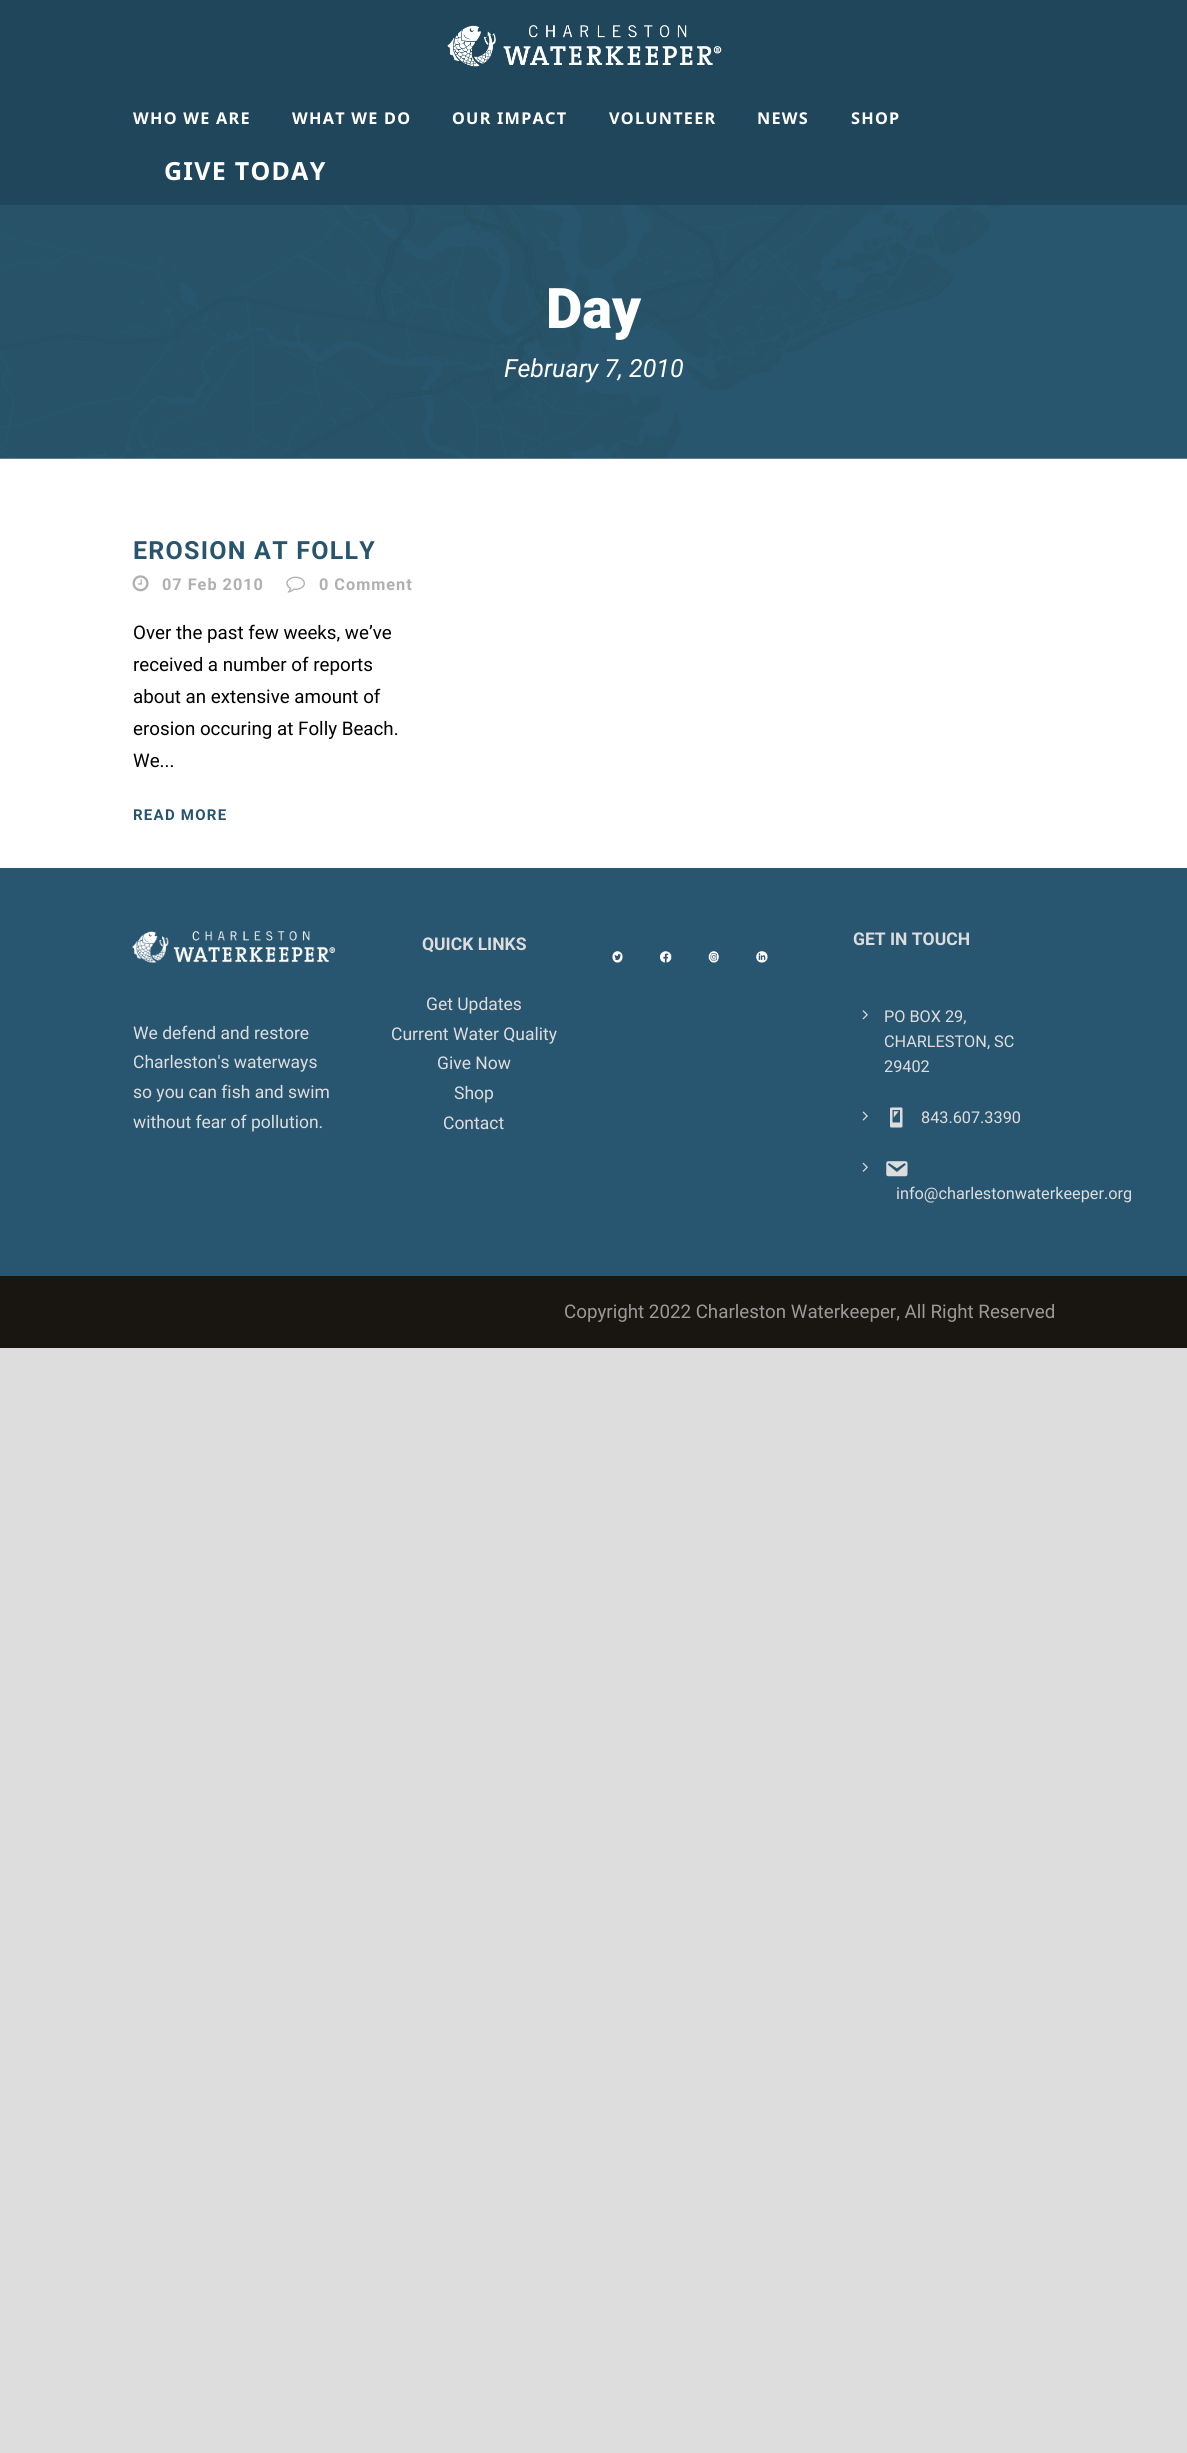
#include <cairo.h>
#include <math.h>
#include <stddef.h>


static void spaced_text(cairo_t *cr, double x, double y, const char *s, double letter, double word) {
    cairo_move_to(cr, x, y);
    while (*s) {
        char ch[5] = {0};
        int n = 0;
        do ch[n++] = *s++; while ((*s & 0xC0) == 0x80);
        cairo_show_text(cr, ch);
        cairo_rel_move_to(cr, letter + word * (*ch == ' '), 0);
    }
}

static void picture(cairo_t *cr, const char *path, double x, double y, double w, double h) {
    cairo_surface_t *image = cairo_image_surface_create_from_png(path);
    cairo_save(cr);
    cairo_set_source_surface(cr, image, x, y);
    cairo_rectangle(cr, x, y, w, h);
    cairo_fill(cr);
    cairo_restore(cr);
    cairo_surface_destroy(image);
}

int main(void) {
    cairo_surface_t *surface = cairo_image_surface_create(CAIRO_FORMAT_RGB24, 1187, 2453);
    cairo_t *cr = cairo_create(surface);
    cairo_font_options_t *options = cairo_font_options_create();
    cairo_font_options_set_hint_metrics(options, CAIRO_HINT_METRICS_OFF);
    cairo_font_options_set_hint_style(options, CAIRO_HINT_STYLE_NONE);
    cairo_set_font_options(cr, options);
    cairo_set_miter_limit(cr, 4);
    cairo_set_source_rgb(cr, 0.867, 0.867, 0.867);
    cairo_paint(cr);
    cairo_set_source_rgb(cr, 1, 1, 1);
    cairo_rectangle(cr, 0, 458, 1187, 410);
    cairo_fill(cr);
    cairo_set_source_rgb(cr, 0.122, 0.275, 0.357);
    cairo_rectangle(cr, 0, 0, 1187, 205);
    cairo_fill(cr);
    picture(cr, "img1.png", 447, 25, 275, 42);
    cairo_select_font_face(cr, "Noto Sans", CAIRO_FONT_SLANT_NORMAL, CAIRO_FONT_WEIGHT_BOLD);
    cairo_set_font_size(cr, 16.25);
    cairo_set_source_rgb(cr, 1, 1, 1);
    spaced_text(cr, 133, 124, "WHO WE ARE", 1.25, 0);
    spaced_text(cr, 292, 124, "WHAT WE DO", 1.25, 0);
    spaced_text(cr, 452, 124, "OUR IMPACT", 1.25, 0);
    spaced_text(cr, 609, 124, "VOLUNTEER", 1.25, 0);
    spaced_text(cr, 757, 124, "NEWS", 1.25, 0);
    spaced_text(cr, 851, 124, "SHOP", 1.25, 0);
    cairo_set_font_size(cr, 25);
    spaced_text(cr, 164, 180, "GIVE TODAY", 1.25, 0);
    picture(cr, "img2.png", 0, 205, 1187, 254);
    cairo_select_font_face(cr, "Roboto Black", CAIRO_FONT_SLANT_NORMAL, CAIRO_FONT_WEIGHT_NORMAL);
    cairo_set_font_size(cr, 56);
    cairo_move_to(cr, 546, 328);
    cairo_show_text(cr, "Day");
    cairo_select_font_face(cr, "Roboto", CAIRO_FONT_SLANT_ITALIC, CAIRO_FONT_WEIGHT_NORMAL);
    cairo_set_font_size(cr, 25);
    cairo_move_to(cr, 504, 377);
    cairo_show_text(cr, "February 7, 2010");
    cairo_select_font_face(cr, "Roboto", CAIRO_FONT_SLANT_NORMAL, CAIRO_FONT_WEIGHT_BOLD);
    cairo_set_source_rgb(cr, 0.157, 0.333, 0.427);
    spaced_text(cr, 133, 559, "EROSION AT FOLLY", 1.25, 0);
    picture(cr, "img3.png", 132, 575, 17, 17);
    cairo_set_font_size(cr, 16.25);
    cairo_set_source_rgb(cr, 0.69, 0.69, 0.69);
    spaced_text(cr, 162, 590, "07 Feb 2010", 1, 0);
    picture(cr, "img4.png", 286, 576, 19, 17);
    spaced_text(cr, 319, 590, "0 Comment", 1, 0);
    cairo_select_font_face(cr, "Roboto", CAIRO_FONT_SLANT_NORMAL, CAIRO_FONT_WEIGHT_NORMAL);
    cairo_set_font_size(cr, 18.75);
    cairo_set_source_rgb(cr, 0, 0, 0);
    cairo_move_to(cr, 133, 639);
    cairo_show_text(cr, "Over the past few weeks, we’ve");
    cairo_move_to(cr, 133, 671);
    cairo_show_text(cr, "received a number of reports");
    cairo_move_to(cr, 133, 703);
    cairo_show_text(cr, "about an extensive amount of");
    cairo_move_to(cr, 133, 735);
    cairo_show_text(cr, "erosion occuring at Folly Beach.");
    cairo_move_to(cr, 133, 767);
    cairo_show_text(cr, "We...");
    cairo_select_font_face(cr, "Roboto", CAIRO_FONT_SLANT_NORMAL, CAIRO_FONT_WEIGHT_BOLD);
    cairo_set_font_size(cr, 15);
    cairo_set_source_rgb(cr, 0.157, 0.333, 0.427);
    spaced_text(cr, 133, 820, "READ MORE", 1.25, 0);
    cairo_set_source_rgb(cr, 0.157, 0.333, 0.435);
    cairo_rectangle(cr, 0, 868, 1187, 408);
    cairo_fill(cr);
    cairo_set_font_size(cr, 17.5);
    cairo_set_source_rgb(cr, 0.867, 0.867, 0.867);
    cairo_move_to(cr, 422, 950);
    cairo_show_text(cr, "QUICK LINKS");
    cairo_select_font_face(cr, "Roboto", CAIRO_FONT_SLANT_NORMAL, CAIRO_FONT_WEIGHT_NORMAL);
    cairo_move_to(cr, 426, 1010);
    cairo_show_text(cr, "Get Updates");
    cairo_move_to(cr, 391, 1040);
    cairo_show_text(cr, "Current Water Quality");
    cairo_move_to(cr, 437, 1069);
    cairo_show_text(cr, "Give Now");
    cairo_move_to(cr, 454, 1099);
    cairo_show_text(cr, "Shop");
    cairo_move_to(cr, 443, 1129);
    cairo_show_text(cr, "Contact");
    picture(cr, "img5.png", 612, 951, 11, 12);
    picture(cr, "img6.png", 660, 951, 12, 12);
    picture(cr, "img7.png", 708, 951, 11, 12);
    picture(cr, "img8.png", 756, 951, 12, 12);
    cairo_select_font_face(cr, "Roboto", CAIRO_FONT_SLANT_NORMAL, CAIRO_FONT_WEIGHT_BOLD);
    cairo_move_to(cr, 853, 945);
    cairo_show_text(cr, "GET IN TOUCH");
    picture(cr, "img9.png", 862, 1010, 6, 10);
    cairo_select_font_face(cr, "Roboto", CAIRO_FONT_SLANT_NORMAL, CAIRO_FONT_WEIGHT_NORMAL);
    cairo_set_font_size(cr, 16.25);
    cairo_move_to(cr, 884, 1022);
    cairo_show_text(cr, "PO BOX 29,");
    cairo_move_to(cr, 884, 1047);
    cairo_show_text(cr, "CHARLESTON, SC");
    cairo_move_to(cr, 884, 1072);
    cairo_show_text(cr, "29402");
    picture(cr, "img10.png", 862, 1111, 6, 10);
    picture(cr, "img11.png", 890, 1107, 13, 21);
    cairo_move_to(cr, 921, 1123);
    cairo_show_text(cr, "843.607.3390");
    picture(cr, "img12.png", 862, 1162, 6, 10);
    picture(cr, "img13.png", 886, 1161, 22, 16);
    cairo_move_to(cr, 896, 1199);
    cairo_show_text(cr, "info@charlestonwaterkeeper.org");
    picture(cr, "img14.png", 132, 931, 203, 32);
    cairo_set_font_size(cr, 17.5);
    cairo_move_to(cr, 133, 1039);
    cairo_show_text(cr, "We defend and restore");
    cairo_move_to(cr, 133, 1068);
    cairo_show_text(cr, "Charleston's waterways");
    cairo_move_to(cr, 133, 1098);
    cairo_show_text(cr, "so you can fish and swim");
    cairo_move_to(cr, 133, 1128);
    cairo_show_text(cr, "without fear of pollution.");
    cairo_set_source_rgb(cr, 0.098, 0.086, 0.071);
    cairo_rectangle(cr, 0, 1276, 1187, 72);
    cairo_fill(cr);
    cairo_set_font_size(cr, 18.75);
    cairo_set_source_rgb(cr, 0.6, 0.6, 0.6);
    cairo_move_to(cr, 564, 1318);
    cairo_show_text(cr, "Copyright 2022 Charleston Waterkeeper, All Right Reserved");
    cairo_surface_write_to_png(surface, "page.png");
    cairo_font_options_destroy(options);
    cairo_destroy(cr);
    cairo_surface_destroy(surface);
    return 0;
}
